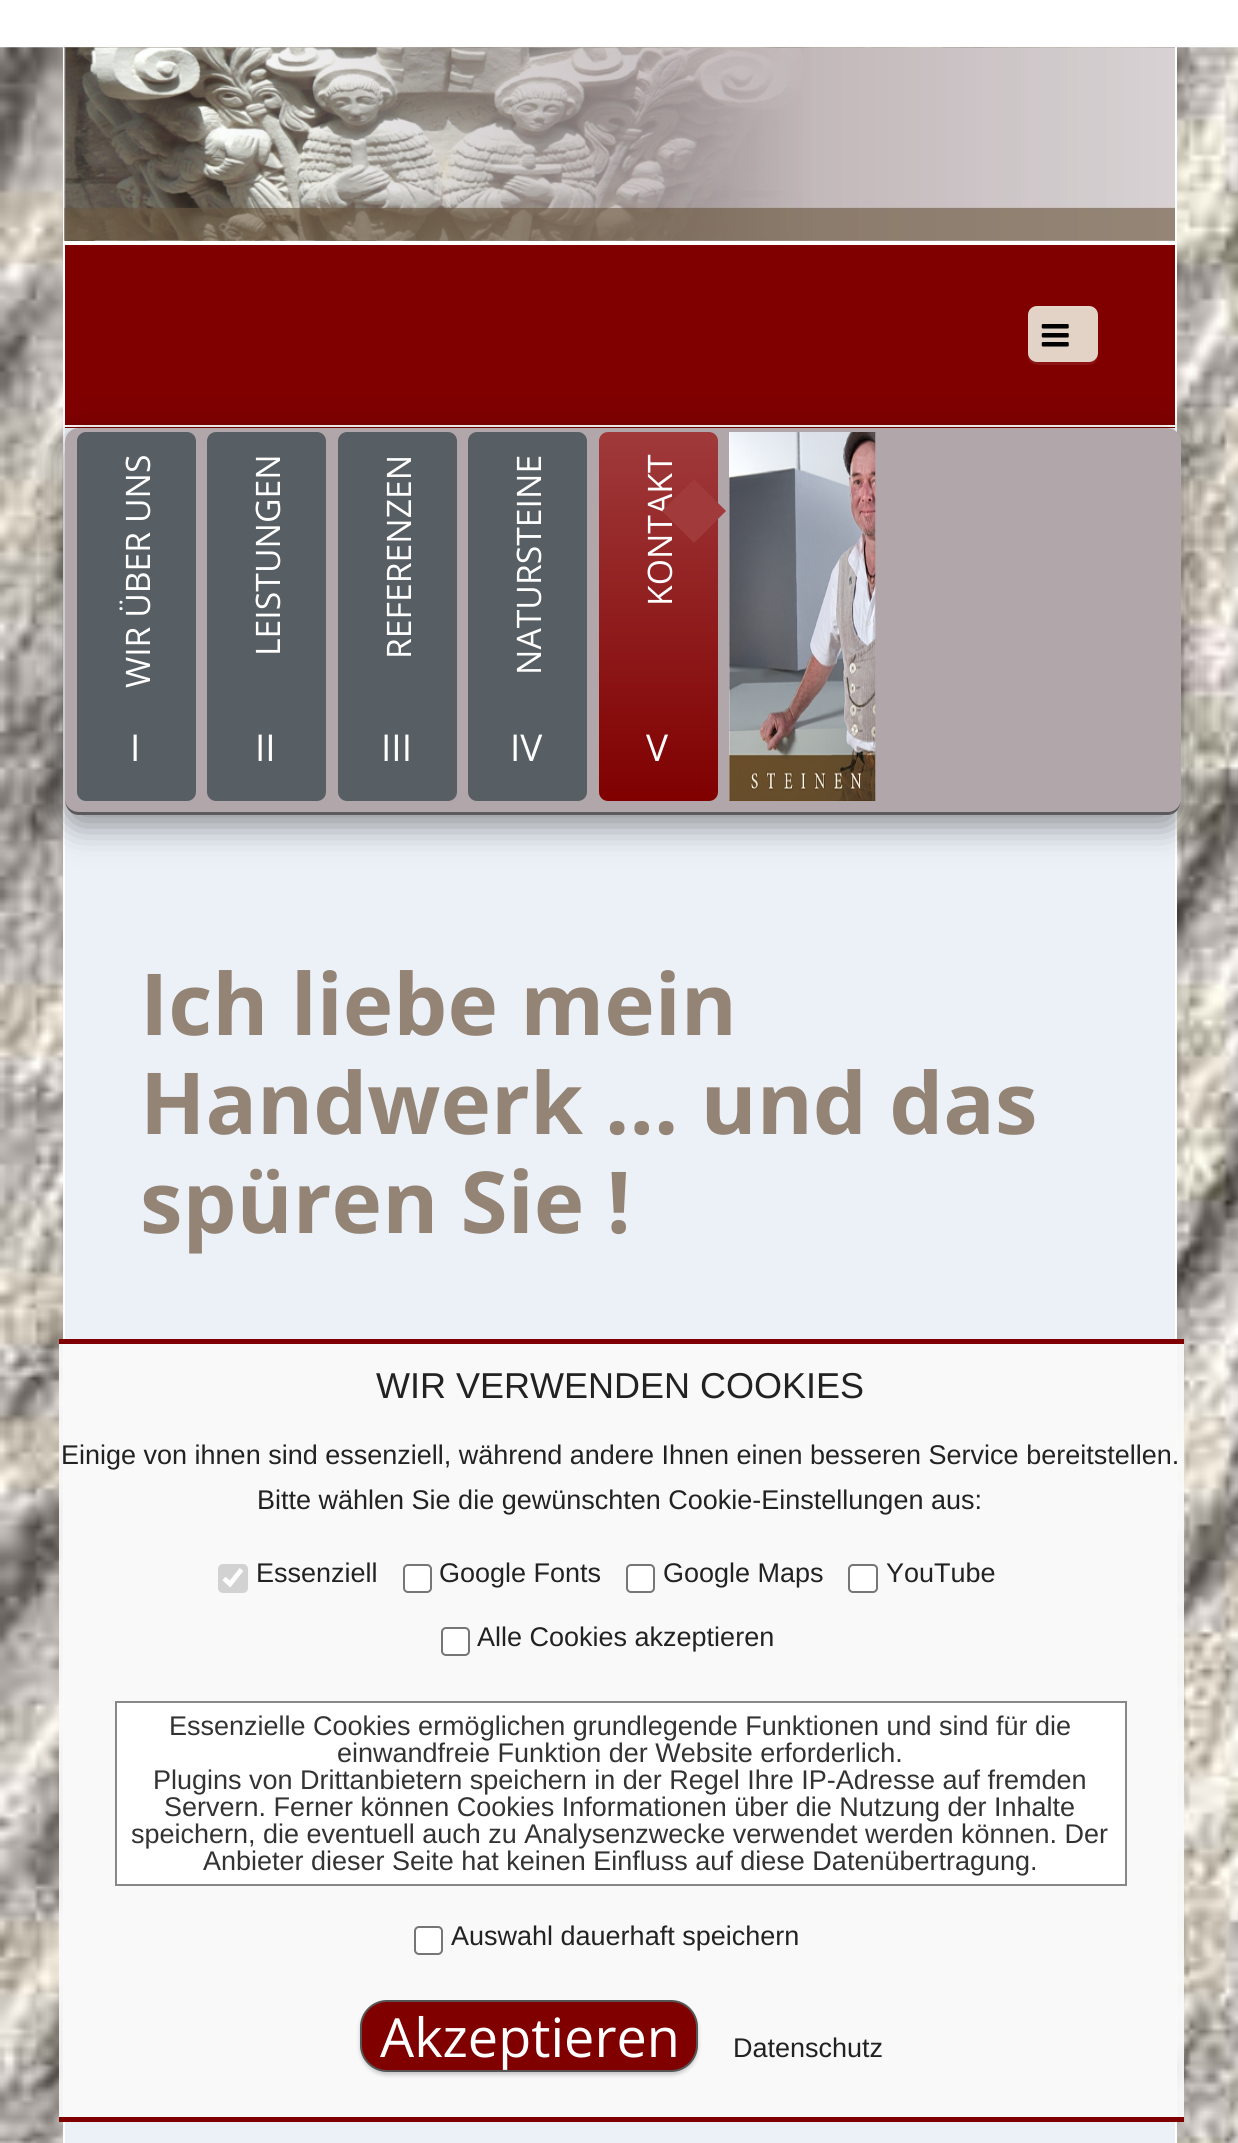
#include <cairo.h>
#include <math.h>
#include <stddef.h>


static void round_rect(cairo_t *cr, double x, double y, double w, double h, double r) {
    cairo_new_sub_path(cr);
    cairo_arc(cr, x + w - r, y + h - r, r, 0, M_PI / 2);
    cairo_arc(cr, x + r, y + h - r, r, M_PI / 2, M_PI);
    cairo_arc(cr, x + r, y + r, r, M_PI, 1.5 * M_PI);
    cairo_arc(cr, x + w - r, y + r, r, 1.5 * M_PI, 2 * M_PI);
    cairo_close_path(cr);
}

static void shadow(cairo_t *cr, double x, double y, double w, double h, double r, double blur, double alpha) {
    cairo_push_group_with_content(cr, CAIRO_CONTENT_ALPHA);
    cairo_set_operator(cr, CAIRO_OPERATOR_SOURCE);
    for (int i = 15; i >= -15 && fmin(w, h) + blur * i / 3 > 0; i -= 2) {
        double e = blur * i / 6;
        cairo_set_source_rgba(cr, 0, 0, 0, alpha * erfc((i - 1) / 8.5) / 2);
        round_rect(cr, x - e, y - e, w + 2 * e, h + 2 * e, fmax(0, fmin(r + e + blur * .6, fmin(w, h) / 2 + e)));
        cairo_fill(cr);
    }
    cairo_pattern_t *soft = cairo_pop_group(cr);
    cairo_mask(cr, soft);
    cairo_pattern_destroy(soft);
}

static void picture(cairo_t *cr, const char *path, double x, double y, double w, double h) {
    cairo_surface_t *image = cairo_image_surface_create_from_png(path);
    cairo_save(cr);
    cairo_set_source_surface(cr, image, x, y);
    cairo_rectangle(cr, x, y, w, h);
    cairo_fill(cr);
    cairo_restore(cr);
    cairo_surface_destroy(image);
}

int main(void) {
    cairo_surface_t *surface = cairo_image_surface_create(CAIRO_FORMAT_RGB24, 1238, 2143);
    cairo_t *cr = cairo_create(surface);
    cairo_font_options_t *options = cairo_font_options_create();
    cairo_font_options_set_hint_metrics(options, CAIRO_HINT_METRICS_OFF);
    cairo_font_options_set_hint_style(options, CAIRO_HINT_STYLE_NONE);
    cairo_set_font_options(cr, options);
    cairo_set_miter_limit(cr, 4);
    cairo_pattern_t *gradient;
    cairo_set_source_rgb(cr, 1, 1, 1);
    cairo_paint(cr);
    picture(cr, "img1.png", 0, 47, 1238, 2096);
    picture(cr, "img2.png", 63, 47, 1112, 194);
    cairo_set_source_rgb(cr, 1, 1, 1);
    cairo_rectangle(cr, 1175, 47, 2, 2096);
    cairo_fill(cr);
    cairo_rectangle(cr, 63, 241, 1114, 2);
    cairo_fill(cr);
    cairo_set_source_rgb(cr, 0.502, 0, 0);
    cairo_rectangle(cr, 65, 245, 1110, 183);
    cairo_fill(cr);
    cairo_set_source_rgb(cr, 1, 1, 1);
    cairo_rectangle(cr, 63, 243, 2, 1900);
    cairo_fill(cr);
    cairo_rectangle(cr, 65, 243, 1110, 2);
    cairo_fill(cr);
    cairo_rectangle(cr, 65, 425, 1110, 2);
    cairo_fill(cr);
    cairo_set_source_rgb(cr, 0.541, 0.075, 0.075);
    cairo_new_path(cr);
    cairo_move_to(cr, 1028, 315);
    cairo_line_to(cr, 1028, 358);
    cairo_curve_to(cr, 1030, 366, 1039, 365, 1046, 365);
    cairo_line_to(cr, 1080, 365);
    cairo_curve_to(cr, 1091, 365, 1098, 366, 1098, 353);
    cairo_curve_to(cr, 1098, 363, 1087, 362, 1080, 362);
    cairo_line_to(cr, 1046, 362);
    cairo_curve_to(cr, 1031, 362, 1028, 362, 1028, 347);
    cairo_close_path(cr);
    cairo_fill(cr);
    cairo_set_source_rgb(cr, 0.89, 0.827, 0.776);
    round_rect(cr, 1028, 306, 70, 56, 9);
    cairo_fill(cr);
    cairo_set_source_rgba(cr, 1, 1, 1, 0.1);
    cairo_new_path(cr);
    cairo_move_to(cr, 1037, 308);
    cairo_line_to(cr, 1089, 308);
    cairo_curve_to(cr, 1094, 308, 1098, 312, 1098, 317);
    cairo_curve_to(cr, 1098, 305, 1090, 306, 1080, 306);
    cairo_line_to(cr, 1046, 306);
    cairo_curve_to(cr, 1036, 306, 1028, 305, 1028, 317);
    cairo_curve_to(cr, 1028, 312, 1032, 308, 1037, 308);
    cairo_close_path(cr);
    cairo_fill(cr);
    picture(cr, "img3.png", 1041, 324, 28, 23);
    cairo_set_source_rgb(cr, 0.922, 0.945, 0.969);
    cairo_rectangle(cr, 65, 428, 1110, 1715);
    cairo_fill(cr);
    cairo_set_source_rgb(cr, 0, 0, 0);
    shadow(cr, 65, 439, 1116, 387, 14, 17, 0.4);
    cairo_set_source_rgb(cr, 0.694, 0.655, 0.667);
    round_rect(cr, 65, 428, 1116, 387, 14);
    cairo_fill(cr);
    cairo_set_source_rgb(cr, 0.357, 0.357, 0.357);
    cairo_new_path(cr);
    cairo_move_to(cr, 65, 799);
    cairo_curve_to(cr, 65, 807, 70, 815, 79, 815);
    cairo_line_to(cr, 1167, 815);
    cairo_curve_to(cr, 1176, 815, 1181, 807, 1181, 799);
    cairo_curve_to(cr, 1181, 806, 1175, 812, 1168, 812);
    cairo_line_to(cr, 79, 812);
    cairo_curve_to(cr, 71, 812, 65, 806, 65, 799);
    cairo_close_path(cr);
    cairo_fill(cr);
    cairo_set_source_rgb(cr, 0.345, 0.373, 0.392);
    round_rect(cr, 77, 432, 119, 369, 9);
    cairo_fill(cr);
    cairo_select_font_face(cr, "Open Sans", CAIRO_FONT_SLANT_NORMAL, CAIRO_FONT_WEIGHT_NORMAL);
    cairo_set_font_size(cr, 33.75);
    cairo_set_source_rgb(cr, 1, 1, 1);
    cairo_save(cr);
    cairo_translate(cr, 150, 688);
    cairo_rotate(cr, -90 * M_PI / 180);
    cairo_move_to(cr, 0, 0);
    cairo_show_text(cr, "WIR ÜBER UNS");
    cairo_restore(cr);
    cairo_set_font_size(cr, 37);
    cairo_move_to(cr, 130, 761);
    cairo_show_text(cr, "I");
    cairo_set_source_rgb(cr, 0.345, 0.373, 0.392);
    round_rect(cr, 207, 432, 119, 369, 9);
    cairo_fill(cr);
    cairo_set_font_size(cr, 33.75);
    cairo_set_source_rgb(cr, 1, 1, 1);
    cairo_save(cr);
    cairo_translate(cr, 280, 656);
    cairo_rotate(cr, -90 * M_PI / 180);
    cairo_move_to(cr, 0, 0);
    cairo_show_text(cr, "LEISTUNGEN");
    cairo_restore(cr);
    cairo_set_font_size(cr, 37);
    cairo_move_to(cr, 255, 761);
    cairo_show_text(cr, "II");
    cairo_set_source_rgb(cr, 0.345, 0.373, 0.392);
    round_rect(cr, 338, 432, 119, 369, 9);
    cairo_fill(cr);
    cairo_set_font_size(cr, 33.75);
    cairo_set_source_rgb(cr, 1, 1, 1);
    cairo_save(cr);
    cairo_translate(cr, 411, 659);
    cairo_rotate(cr, -90 * M_PI / 180);
    cairo_move_to(cr, 0, 0);
    cairo_show_text(cr, "REFERENZEN");
    cairo_restore(cr);
    cairo_set_font_size(cr, 37);
    cairo_move_to(cr, 381, 761);
    cairo_show_text(cr, "III");
    cairo_set_source_rgb(cr, 0.345, 0.373, 0.392);
    round_rect(cr, 468, 432, 119, 369, 9);
    cairo_fill(cr);
    cairo_set_font_size(cr, 33.75);
    cairo_set_source_rgb(cr, 1, 1, 1);
    cairo_save(cr);
    cairo_translate(cr, 541, 675);
    cairo_rotate(cr, -90 * M_PI / 180);
    cairo_move_to(cr, 0, 0);
    cairo_show_text(cr, "NATURSTEINE");
    cairo_restore(cr);
    cairo_set_font_size(cr, 37);
    cairo_move_to(cr, 510, 761);
    cairo_show_text(cr, "IV");
    gradient = cairo_pattern_create_linear(658, 432, 658, 801);
    cairo_pattern_add_color_stop_rgba(gradient, 0, 0.627, 0.227, 0.231, 1);
    cairo_pattern_add_color_stop_rgba(gradient, 1, 0.502, 0, 0, 1);
    cairo_set_source(cr, gradient);
    cairo_pattern_destroy(gradient);
    round_rect(cr, 599, 432, 119, 369, 9);
    cairo_fill(cr);
    cairo_set_font_size(cr, 33.75);
    cairo_set_source_rgb(cr, 1, 1, 1);
    cairo_save(cr);
    cairo_translate(cr, 672, 606);
    cairo_rotate(cr, -90 * M_PI / 180);
    cairo_move_to(cr, 0, 0);
    cairo_show_text(cr, "KONTAKT");
    cairo_restore(cr);
    cairo_set_source_rgb(cr, 0.627, 0.227, 0.231);
    cairo_new_path(cr);
    cairo_move_to(cr, 662, 511);
    cairo_line_to(cr, 694, 479);
    cairo_line_to(cr, 726, 511);
    cairo_line_to(cr, 694, 543);
    cairo_close_path(cr);
    cairo_fill(cr);
    cairo_set_font_size(cr, 37);
    cairo_set_source_rgb(cr, 1, 1, 1);
    cairo_move_to(cr, 646, 761);
    cairo_show_text(cr, "V");
    picture(cr, "img4.png", 729, 432, 147, 369);
    cairo_select_font_face(cr, "Open Sans", CAIRO_FONT_SLANT_NORMAL, CAIRO_FONT_WEIGHT_BOLD);
    cairo_set_font_size(cr, 85.5);
    cairo_set_source_rgb(cr, 0.58, 0.518, 0.459);
    cairo_move_to(cr, 140, 1035);
    cairo_show_text(cr, "Ich liebe mein");
    cairo_move_to(cr, 140, 1134);
    cairo_show_text(cr, "Handwerk ... und das");
    cairo_move_to(cr, 140, 1233);
    cairo_show_text(cr, "spüren Sie !");
    cairo_set_source_rgba(cr, 0.98, 0.98, 0.98, 0.94);
    cairo_rectangle(cr, 59, 1344, 1125, 773);
    cairo_fill(cr);
    cairo_set_source_rgb(cr, 0.502, 0, 0);
    cairo_rectangle(cr, 59, 1339, 1125, 5);
    cairo_fill(cr);
    cairo_rectangle(cr, 59, 2117, 1125, 5);
    cairo_fill(cr);
    cairo_select_font_face(cr, "Liberation Sans", CAIRO_FONT_SLANT_NORMAL, CAIRO_FONT_WEIGHT_NORMAL);
    cairo_set_font_size(cr, 36);
    cairo_set_source_rgb(cr, 0.133, 0.133, 0.133);
    cairo_move_to(cr, 376, 1398);
    cairo_show_text(cr, "WIR VERWENDEN COOKIES");
    cairo_set_font_size(cr, 27);
    cairo_move_to(cr, 61, 1464);
    cairo_show_text(cr, "Einige von ihnen sind essenziell, während andere Ihnen einen besseren Service bereitstellen.");
    cairo_move_to(cr, 257, 1509);
    cairo_show_text(cr, "Bitte wählen Sie die gewünschten Cookie-Einstellungen aus:");
    cairo_set_source_rgba(cr, 0.463, 0.463, 0.463, 0.3);
    round_rect(cr, 218, 1564, 30, 29, 5);
    cairo_fill(cr);
    cairo_new_path(cr);
    cairo_move_to(cr, 224, 1578.5);
    cairo_line_to(cr, 230, 1584);
    cairo_line_to(cr, 241.5, 1569.5);
    cairo_set_source_rgb(cr, 1, 1, 1);
    cairo_set_line_width(cr, 4.7);
    cairo_stroke(cr);
    cairo_set_source_rgb(cr, 0.133, 0.133, 0.133);
    cairo_move_to(cr, 256, 1582);
    cairo_show_text(cr, "Essenziell");
    cairo_set_source_rgb(cr, 1, 1, 1);
    round_rect(cr, 404, 1565, 27, 27, 4);
    cairo_fill_preserve(cr);
    cairo_set_source_rgb(cr, 0.463, 0.463, 0.463);
    cairo_set_line_width(cr, 2);
    cairo_stroke(cr);
    cairo_set_source_rgb(cr, 0.133, 0.133, 0.133);
    cairo_move_to(cr, 439, 1582);
    cairo_show_text(cr, "Google Fonts");
    cairo_set_source_rgb(cr, 1, 1, 1);
    round_rect(cr, 627, 1565, 27, 27, 4);
    cairo_fill_preserve(cr);
    cairo_set_source_rgb(cr, 0.463, 0.463, 0.463);
    cairo_stroke(cr);
    cairo_set_source_rgb(cr, 0.133, 0.133, 0.133);
    cairo_move_to(cr, 663, 1582);
    cairo_show_text(cr, "Google Maps");
    cairo_set_source_rgb(cr, 1, 1, 1);
    round_rect(cr, 849, 1565, 28, 27, 4);
    cairo_fill_preserve(cr);
    cairo_set_source_rgb(cr, 0.463, 0.463, 0.463);
    cairo_stroke(cr);
    cairo_set_source_rgb(cr, 0.133, 0.133, 0.133);
    cairo_move_to(cr, 886, 1582);
    cairo_show_text(cr, "YouTube");
    cairo_set_source_rgb(cr, 1, 1, 1);
    round_rect(cr, 442, 1628, 27, 27, 4);
    cairo_fill_preserve(cr);
    cairo_set_source_rgb(cr, 0.463, 0.463, 0.463);
    cairo_stroke(cr);
    cairo_set_source_rgb(cr, 0.133, 0.133, 0.133);
    cairo_move_to(cr, 477, 1646);
    cairo_show_text(cr, "Alle Cookies akzeptieren");
    cairo_set_source_rgba(cr, 1, 1, 1, 0.98);
    cairo_rectangle(cr, 116, 1702, 1010, 183);
    cairo_fill_preserve(cr);
    cairo_set_source_rgb(cr, 0.533, 0.533, 0.533);
    cairo_stroke(cr);
    cairo_set_source_rgb(cr, 0.2, 0.2, 0.2);
    cairo_move_to(cr, 169, 1735);
    cairo_show_text(cr, "Essenzielle Cookies ermöglichen grundlegende Funktionen und sind für die");
    cairo_move_to(cr, 337, 1762);
    cairo_show_text(cr, "einwandfreie Funktion der Website erforderlich.");
    cairo_move_to(cr, 153, 1789);
    cairo_show_text(cr, "Plugins von Drittanbietern speichern in der Regel Ihre IP-Adresse auf fremden");
    cairo_move_to(cr, 164, 1816);
    cairo_show_text(cr, "Servern. Ferner können Cookies Informationen über die Nutzung der Inhalte");
    cairo_move_to(cr, 131, 1843);
    cairo_show_text(cr, "speichern, die eventuell auch zu Analysenzwecke verwendet werden können. Der");
    cairo_move_to(cr, 203, 1870);
    cairo_show_text(cr, "Anbieter dieser Seite hat keinen Einfluss auf diese Datenübertragung.");
    cairo_set_source_rgb(cr, 1, 1, 1);
    round_rect(cr, 415, 1927, 27, 27, 4);
    cairo_fill_preserve(cr);
    cairo_set_source_rgb(cr, 0.463, 0.463, 0.463);
    cairo_stroke(cr);
    cairo_set_source_rgb(cr, 0.133, 0.133, 0.133);
    cairo_move_to(cr, 451, 1945);
    cairo_show_text(cr, "Auswahl dauerhaft speichern");
    cairo_set_source_rgb(cr, 0, 0, 0);
    shadow(cr, 360, 2003, 338, 72, 27, 2, 0.2);
    cairo_set_source_rgb(cr, 0.502, 0, 0);
    round_rect(cr, 361, 2001, 336, 70, 26);
    cairo_fill_preserve(cr);
    cairo_set_source_rgb(cr, 0.333, 0.333, 0.333);
    cairo_stroke(cr);
    cairo_select_font_face(cr, "Open Sans", CAIRO_FONT_SLANT_NORMAL, CAIRO_FONT_WEIGHT_NORMAL);
    cairo_set_font_size(cr, 54);
    cairo_set_source_rgb(cr, 1, 1, 1);
    cairo_move_to(cr, 380, 2057);
    cairo_show_text(cr, "Akzeptieren");
    cairo_select_font_face(cr, "Liberation Sans", CAIRO_FONT_SLANT_NORMAL, CAIRO_FONT_WEIGHT_NORMAL);
    cairo_set_font_size(cr, 27);
    cairo_set_source_rgb(cr, 0.133, 0.133, 0.133);
    cairo_move_to(cr, 733, 2057);
    cairo_show_text(cr, "Datenschutz");
    cairo_surface_write_to_png(surface, "page.png");
    cairo_font_options_destroy(options);
    cairo_destroy(cr);
    cairo_surface_destroy(surface);
    return 0;
}
